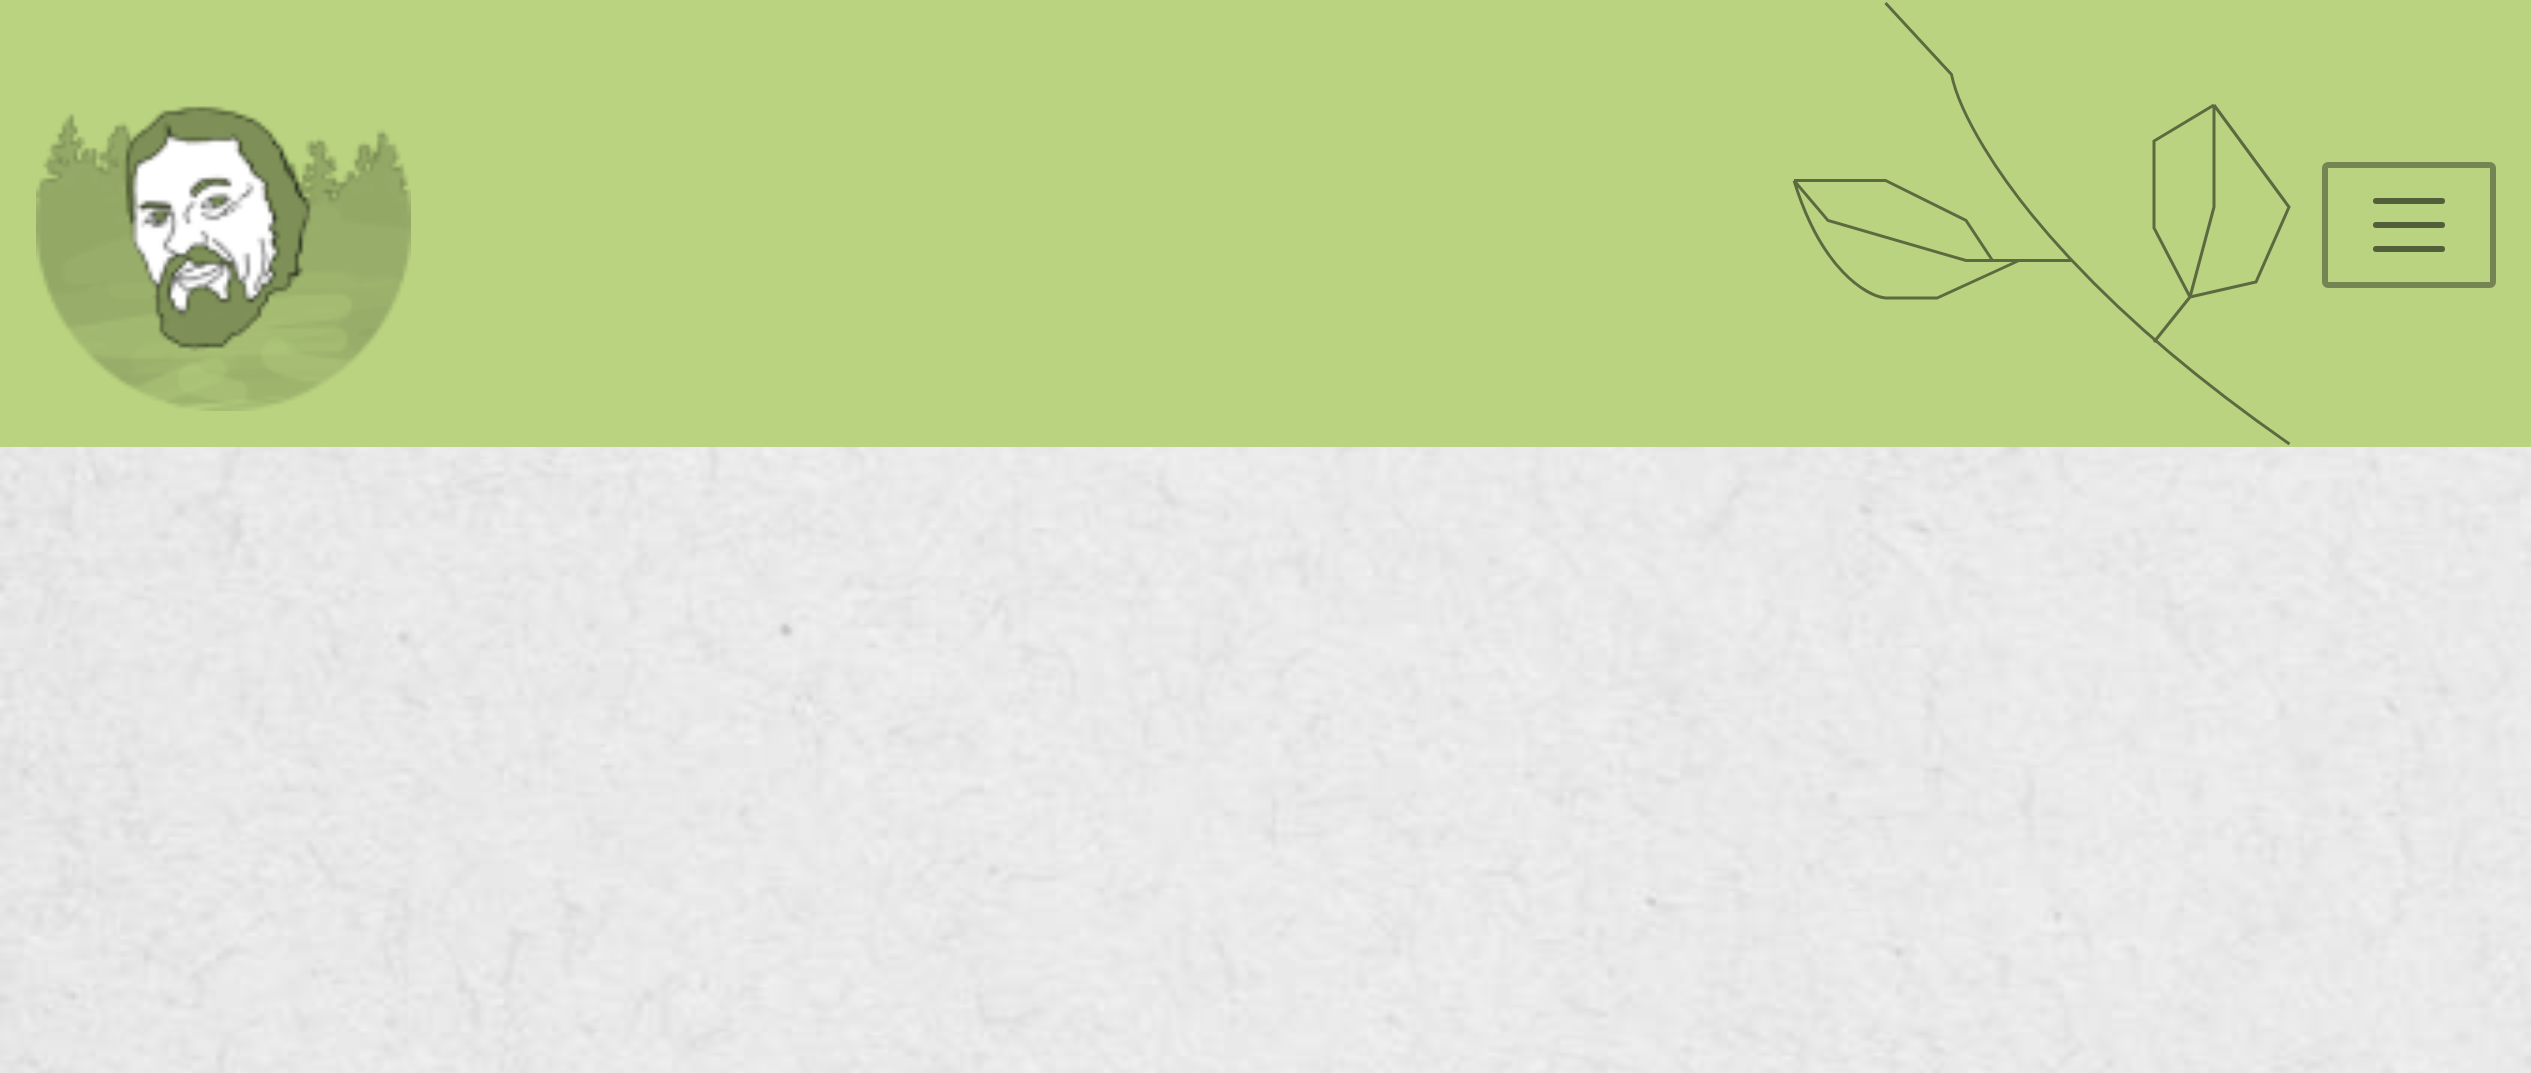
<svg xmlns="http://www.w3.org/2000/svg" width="2531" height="1073">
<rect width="100%" height="100%" fill="#fff"/>
<image x="0" y="447" width="2531" height="626" href="media/1.png"/>
<rect width="2531" height="447" fill="#b9d380"/>
<image x="36" y="106" width="375" height="305" href="media/2.png"/>
<path d="M2154 342l36-45m0 0l24-90v-102m-24 192l66-15l33-75l-75-102m-24 192l-36-69v-87l60-36" fill="none" stroke="#5d6a40" stroke-width="3"/>
<path d="M2289.5 444c-95-66-166-128.5-217.5-183.5m-186.5-257.5l66 71.5c6.5 32 39.5 100 120.5 186m0 0h-53m-225-80l34 40l138 40h26.5m-198.5-80c27.5 89.5 72.5 115.5 91.5 117.5h51.5l82-37.5m-225-80h91.5l80.5 40l26.5 40m26.5 0h-26.5" fill="none" stroke="#5d6a40" stroke-width="2.9"/>
<rect x="2325" y="165" width="168" height="120" rx="3" fill="none" stroke="#748452" stroke-width="6"/>
<path d="M2376 201h66m-66 24h66m-66 24h66" fill="none" stroke="#535f3a" stroke-width="6" stroke-linecap="round"/>
</svg>
